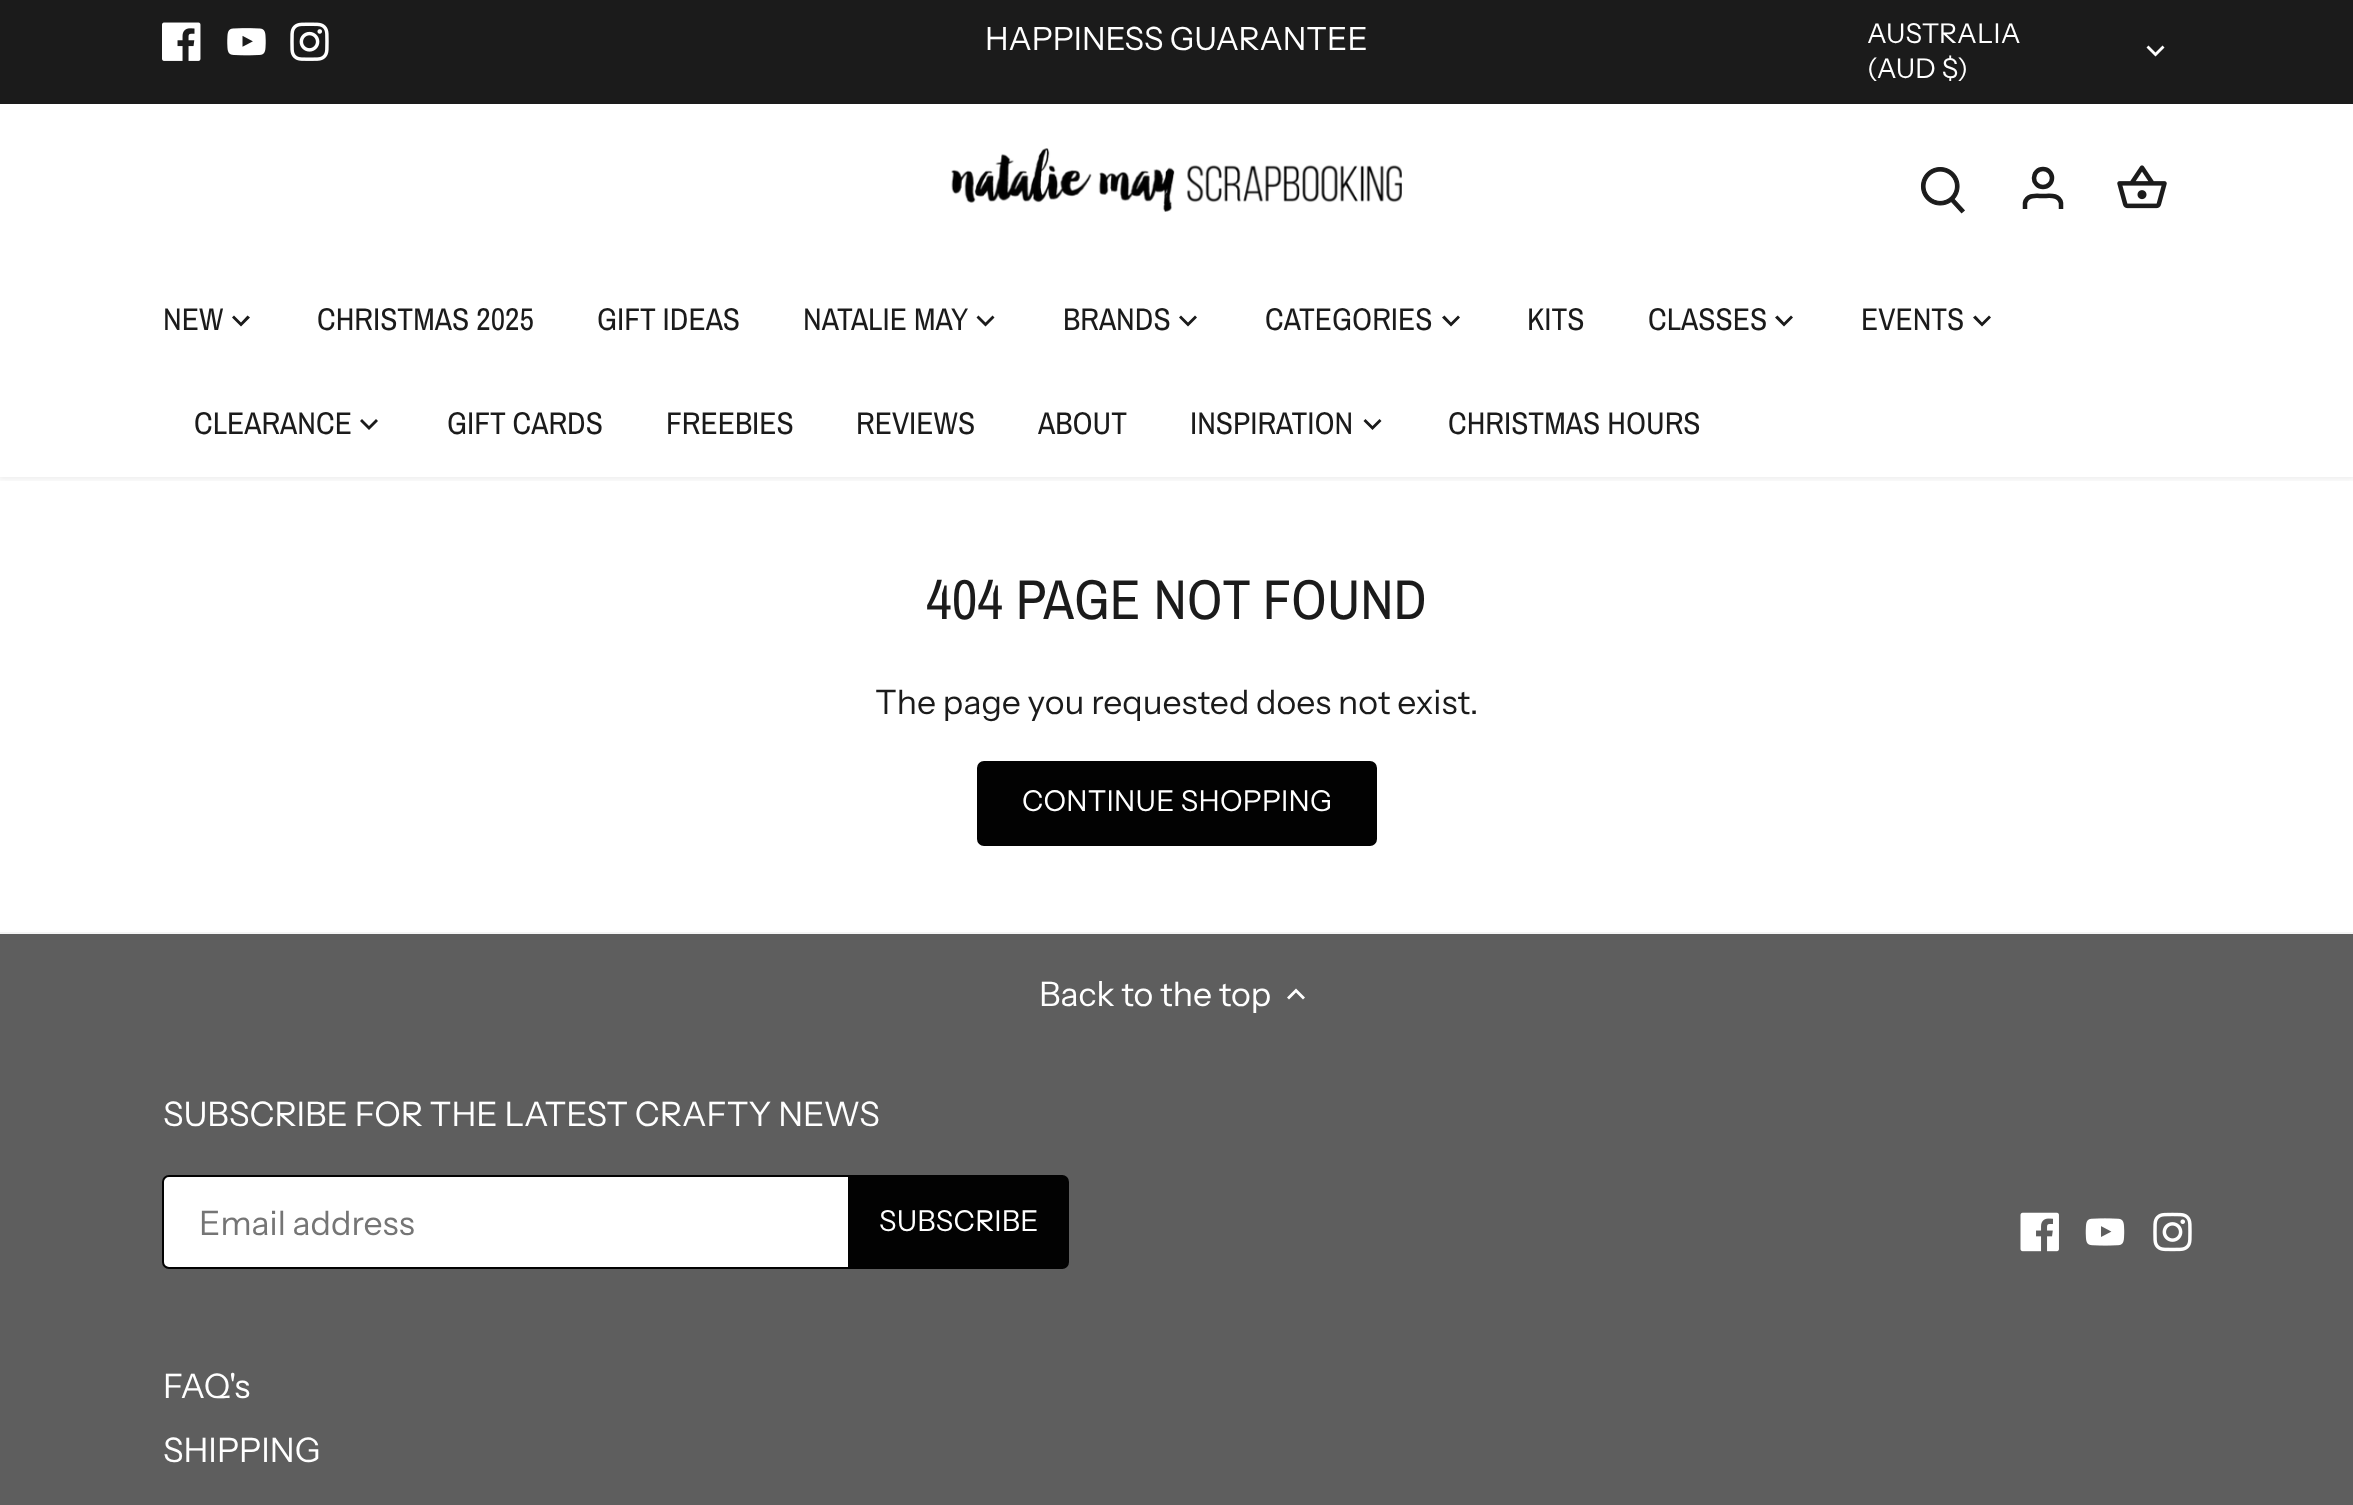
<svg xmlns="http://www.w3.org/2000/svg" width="2353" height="1505">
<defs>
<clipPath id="clip1"><rect x="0" y="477" width="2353" height="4"/></clipPath>
</defs>
<rect width="100%" height="100%" fill="#5e5e5e"/>
<rect y="104" width="2353" height="828" fill="#fff"/>
<g clip-path="url(#clip1)">
<rect x="-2" y="101" width="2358" height="378" fill="#00000014" filter="blur(3.5px)"/>
</g>
<rect width="2353" height="104" fill="#1b1b1b"/>
<image x="162" y="22" width="39" height="39" href="media/1.png"/>
<image x="227" y="28" width="39" height="28" href="media/2.png"/>
<image x="290" y="22" width="39" height="39" href="media/3.png"/>
<text x="985" y="50" style="font-family:Instrument Sans;font-size:32px;fill:#fff">HAPPINESS GUARANTEE</text>
<text x="1867" y="43" style="font-family:Instrument Sans;font-size:27.25px;letter-spacing:0.25px;fill:#fff">AUSTRALIA</text>
<path d="M2148.5 45.5l7 7l7-7l2 2l-9 9l-9-9z" fill="#fff"/>
<text x="1867" y="78" style="font-family:Instrument Sans;font-size:27.25px;letter-spacing:0.25px;fill:#fff">(AUD $)</text>
<image x="951" y="148" width="451" height="64" href="media/4.png"/>
<image x="1920" y="167" width="45" height="47" href="media/5.png"/>
<circle cx="2043" cy="178" r="9" fill="none" stroke="#1b1b1b" stroke-width="4.5"/>
<path d="M2061 209v-6c-2-9-11.5-7-18-7c-6.5 0-16-2-18 7v6" fill="none" stroke="#1b1b1b" stroke-width="4.5"/>
<image x="2117" y="165" width="50" height="44" href="media/6.png"/>
<text x="163" y="330" style="font-family:Archivo Narrow;font-size:31.5px;fill:#1b1b1b">NEW</text>
<path d="M234 315.5l7 7l6.5-7l2.5 2l-9 9l-9-9z" fill="#1b1b1b"/>
<text x="317" y="330" style="font-family:Archivo Narrow;font-size:31.5px;fill:#1b1b1b">CHRISTMAS 2025</text>
<text x="597" y="330" style="font-family:Archivo Narrow;font-size:31.5px;fill:#1b1b1b">GIFT IDEAS</text>
<text x="803" y="330" style="font-family:Archivo Narrow;font-size:31.5px;fill:#1b1b1b">NATALIE MAY</text>
<path d="M978.5 315.5l7 7l7-7l2 2l-9 9l-9-9z" fill="#1b1b1b"/>
<text x="1063" y="330" style="font-family:Archivo Narrow;font-size:31.5px;fill:#1b1b1b">BRANDS</text>
<path d="M1181 315.5l7 7l7-7l2 2l-9 9l-9-9z" fill="#1b1b1b"/>
<text x="1265" y="330" style="font-family:Archivo Narrow;font-size:31.5px;fill:#1b1b1b">CATEGORIES</text>
<path d="M1444.5 315.5l6.5 7l7-7l2 2l-9 9l-9-9z" fill="#1b1b1b"/>
<text x="1527" y="330" style="font-family:Archivo Narrow;font-size:31.5px;fill:#1b1b1b">KITS</text>
<text x="1648" y="330" style="font-family:Archivo Narrow;font-size:31.5px;fill:#1b1b1b">CLASSES</text>
<path d="M1777.5 315.5l6.5 7l7-7l2 2l-9 9l-9-9z" fill="#1b1b1b"/>
<text x="1861" y="330" style="font-family:Archivo Narrow;font-size:31.5px;fill:#1b1b1b">EVENTS</text>
<path d="M1975.5 315.5l6.5 7l7-7l2 2l-9 9l-9-9z" fill="#1b1b1b"/>
<text x="194" y="434" style="font-family:Archivo Narrow;font-size:31.5px;fill:#1b1b1b">CLEARANCE</text>
<path d="M362 419l7 7l7-7l2 2l-9 9l-9-9z" fill="#1b1b1b"/>
<text x="447" y="434" style="font-family:Archivo Narrow;font-size:31.5px;fill:#1b1b1b">GIFT CARDS</text>
<text x="666" y="434" style="font-family:Archivo Narrow;font-size:31.5px;fill:#1b1b1b">FREEBIES</text>
<text x="856" y="434" style="font-family:Archivo Narrow;font-size:31.5px;fill:#1b1b1b">REVIEWS</text>
<text x="1038" y="434" style="font-family:Archivo Narrow;font-size:31.5px;fill:#1b1b1b">ABOUT</text>
<text x="1190" y="434" style="font-family:Archivo Narrow;font-size:31.5px;fill:#1b1b1b">INSPIRATION</text>
<path d="M1365.5 419l7 7l7-7l2 2l-9 9l-9-9z" fill="#1b1b1b"/>
<text x="1448" y="434" style="font-family:Archivo Narrow;font-size:31.5px;fill:#1b1b1b">CHRISTMAS HOURS</text>
<text x="926" y="619" style="font-family:Archivo Narrow;font-size:56.25px;fill:#1b1b1b">404 PAGE NOT FOUND</text>
<text x="875" y="714" style="font-family:Instrument Sans;font-size:33.75px;fill:#1b1b1b">The page you requested does not exist.</text>
<rect x="979.5" y="763.5" width="395" height="80" rx="4.5" fill="#020202" stroke="#020202" stroke-width="5"/>
<text x="1022" y="811" style="font-family:Instrument Sans;font-size:28.75px;letter-spacing:0.25px;fill:#fff">CONTINUE SHOPPING</text>
<rect y="932" width="2353" height="2" fill="#f4f4f4"/>
<text x="1039" y="1006" style="font-family:Instrument Sans;font-size:33.75px;fill:#fff">Back to the top</text>
<path d="M1289 999.5l7-7l7 7l2-2l-9-9l-9 9z" fill="#fff"/>
<text x="163" y="1126" style="font-family:Instrument Sans;font-size:33.75px;fill:#fff">SUBSCRIBE FOR THE LATEST CRAFTY NEWS</text>
<rect x="163" y="1176" width="903" height="92" rx="6" fill="#fff" stroke="#020202" stroke-width="2"/>
<text x="199" y="1235" style="font-family:Instrument Sans;font-size:33.75px;fill:#757575">Email address</text>
<path d="M849 1176h213c3.5 0 6 2.5 6 6v80c0 3.5-2.5 6-6 6h-213z" fill="#020202" stroke="#020202" stroke-width="2"/>
<text x="879" y="1231" style="font-family:Instrument Sans;font-size:28.75px;letter-spacing:0.25px;fill:#fff">SUBSCRIBE</text>
<image x="2020" y="1212" width="39" height="40" href="media/7.png"/>
<image x="2085" y="1218" width="40" height="28" href="media/8.png"/>
<image x="2153" y="1212" width="39" height="40" href="media/9.png"/>
<text x="163" y="1398" style="font-family:Instrument Sans;font-size:33.75px;fill:#fff">FAQ's</text>
<text x="163" y="1462" style="font-family:Instrument Sans;font-size:33.75px;fill:#fff">SHIPPING</text>
</svg>
